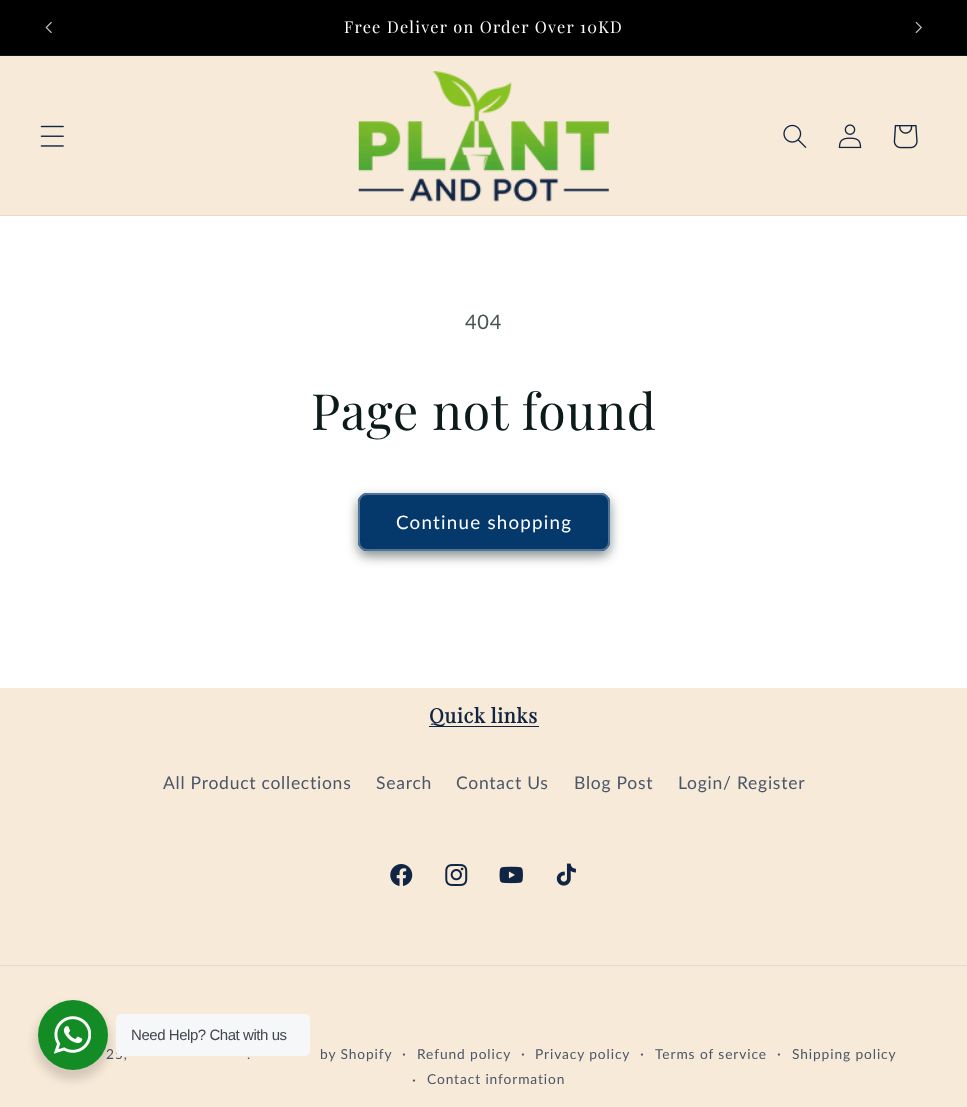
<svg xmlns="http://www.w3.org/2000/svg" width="967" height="1107">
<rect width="100%" height="100%" fill="#fff"/>
<rect width="967" height="55" fill="#000"/>
<rect y="55" width="967" height="1" fill="#141414"/>
<image x="45" y="21" width="7" height="12" href="media/1.png"/>
<text x="344" y="33" style="font-family:Playfair Display;font-size:16.25px;letter-spacing:1.25px;fill:#fff">Free Deliver on Order Over 10KD</text>
<image x="915" y="22" width="7" height="11" href="media/2.png"/>
<rect y="56" width="967" height="159" fill="#f8ead8"/>
<rect y="215" width="967" height="1" fill="#e5dacc"/>
<image x="40" y="125" width="24" height="22" href="media/3.png"/>
<image x="358" y="71" width="251" height="131" href="media/4.png"/>
<image x="783" y="124" width="24" height="24" href="media/5.png"/>
<image x="838" y="124" width="24" height="25" href="media/6.png"/>
<image x="893" y="125" width="25" height="24" href="media/7.png"/>
<text x="465" y="329" style="font-family:Lato;font-size:20px;letter-spacing:0.75px;fill:#495353">404</text>
<text x="311" y="430" style="font-family:Playfair Display;font-size:50px;letter-spacing:0.75px;fill:#0c1a1a">Page not found</text>
<rect x="358" y="498" width="252" height="58" rx="9" fill="#0c1a1a80" filter="blur(6px)"/>
<rect x="358" y="493" width="252" height="58" rx="9" fill="#05386b"/>
<rect x="358.5" y="493.5" width="251" height="57" rx="8.5" fill="none" stroke="#05386b"/>
<rect x="359" y="494" width="250" height="56" rx="8" fill="none" stroke="#ffffff4d" stroke-width="2"/>
<text x="396" y="529" style="font-family:Lato;font-size:18.75px;letter-spacing:1.25px;fill:#fff">Continue shopping</text>
<rect y="688" width="967" height="419" fill="#f8ead8"/>
<rect x="429" y="726" width="110" height="1" fill="#102444"/>
<text x="429" y="723" style="font-family:Playfair Display;font-size:20px;font-weight:bold;letter-spacing:0.75px;fill:#102444">Quick links</text>
<text x="163" y="789" style="font-family:Lato;font-size:17.5px;letter-spacing:0.75px;fill:#4a5669">All Product collections</text>
<text x="376" y="789" style="font-family:Lato;font-size:17.5px;letter-spacing:0.75px;fill:#4a5669">Search</text>
<text x="456" y="789" style="font-family:Lato;font-size:17.5px;letter-spacing:0.75px;fill:#4a5669">Contact Us</text>
<text x="574" y="789" style="font-family:Lato;font-size:17.5px;letter-spacing:0.75px;fill:#4a5669">Blog Post</text>
<text x="678" y="789" style="font-family:Lato;font-size:17.5px;letter-spacing:0.75px;fill:#4a5669">Login/ Register</text>
<image x="390" y="864" width="23" height="22" href="media/8.png"/>
<image x="445" y="864" width="23" height="22" href="media/9.png"/>
<image x="499" y="866" width="24" height="18" href="media/10.png"/>
<image x="556" y="863" width="20" height="23" href="media/11.png"/>
<rect y="965" width="967" height="1" fill="#e5dacc"/>
<text x="106" y="1059" style="font-family:Lato;font-size:13.75px;letter-spacing:0.9px;fill:#4a5669">25,</text>
<text x="247" y="1059" style="font-family:Lato;font-size:13.75px;letter-spacing:0.9px;fill:#4a5669">.</text>
<text x="320" y="1059" style="font-family:Lato;font-size:13.75px;letter-spacing:0.9px;fill:#4a5669">by Shopify</text>
<text x="402" y="1059" style="font-family:Lato;font-size:15px;letter-spacing:0.9px;fill:#4a5669">·</text>
<text x="417" y="1059" style="font-family:Lato;font-size:13.75px;letter-spacing:0.9px;fill:#4a5669">Refund policy</text>
<text x="521" y="1059" style="font-family:Lato;font-size:15px;letter-spacing:0.9px;fill:#4a5669">·</text>
<text x="535" y="1059" style="font-family:Lato;font-size:13.75px;letter-spacing:0.9px;fill:#4a5669">Privacy policy</text>
<text x="640" y="1059" style="font-family:Lato;font-size:15px;letter-spacing:0.9px;fill:#4a5669">·</text>
<text x="655" y="1059" style="font-family:Lato;font-size:13.75px;letter-spacing:0.9px;fill:#4a5669">Terms of service</text>
<text x="777" y="1059" style="font-family:Lato;font-size:15px;letter-spacing:0.9px;fill:#4a5669">·</text>
<text x="792" y="1059" style="font-family:Lato;font-size:13.75px;letter-spacing:0.9px;fill:#4a5669">Shipping policy</text>
<text x="412" y="1085" style="font-family:Lato;font-size:15px;letter-spacing:0.9px;fill:#4a5669">·</text>
<text x="427" y="1084" style="font-family:Lato;font-size:13.75px;letter-spacing:0.9px;fill:#4a5669">Contact information</text>
<rect x="35" y="1005" width="75" height="75" rx="37.5" fill="#00000024" filter="blur(5px)"/>
<circle cx="73" cy="1035" r="35" fill="#148c26"/>
<image x="54" y="1016" width="37" height="38" href="media/12.png"/>
<rect x="116" y="1014" width="194" height="42" rx="5" fill="#f5f7f9"/>
<text x="131" y="1040" style="font-family:Liberation Sans;font-size:15px;letter-spacing:-0.45px;fill:#43474e">Need Help? Chat with us</text>
</svg>
